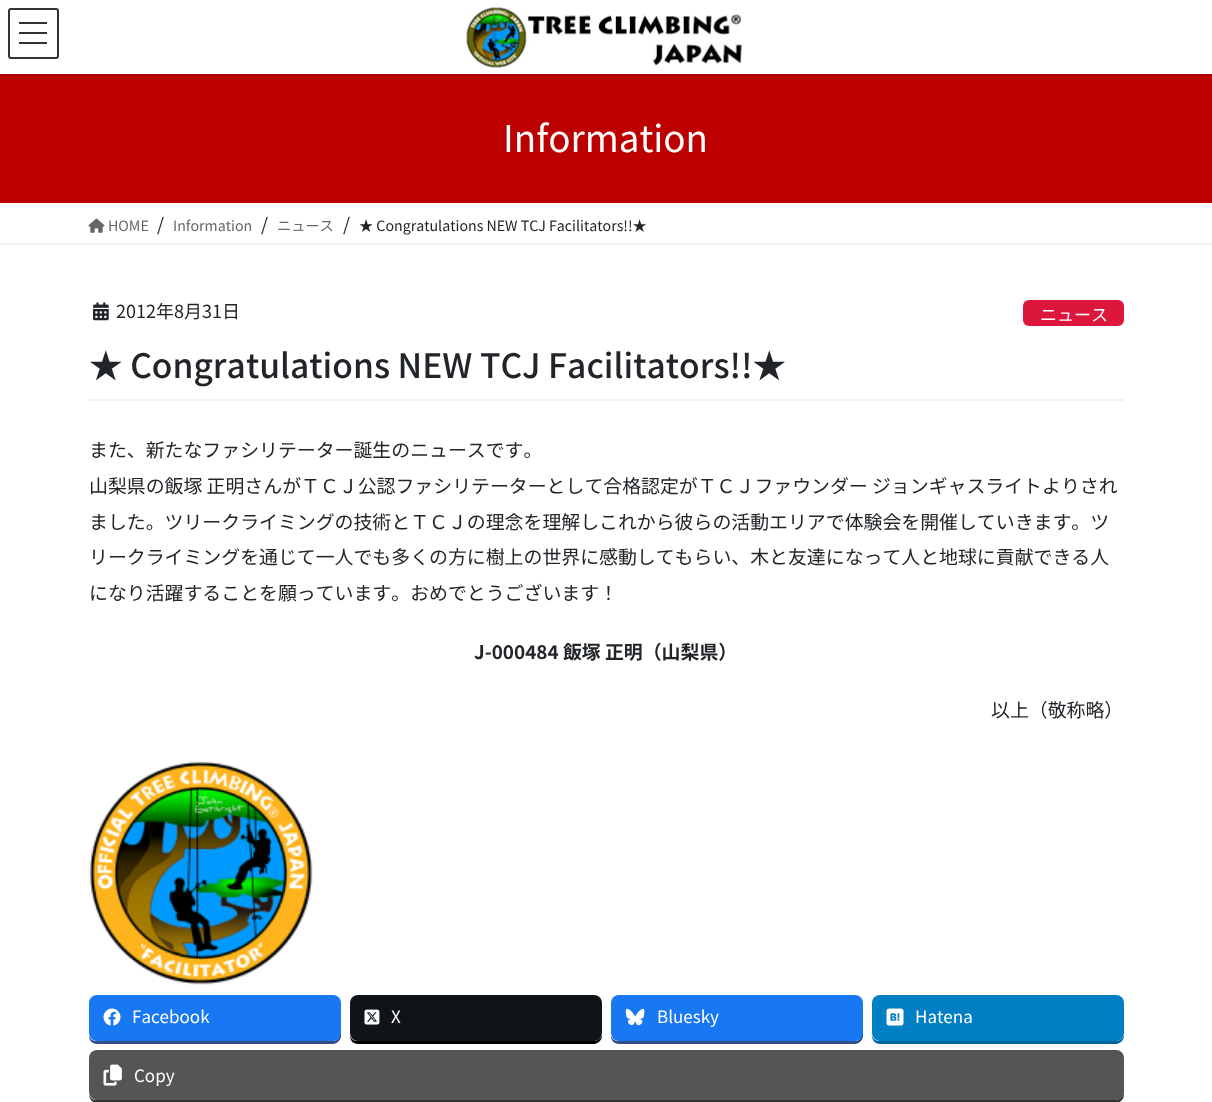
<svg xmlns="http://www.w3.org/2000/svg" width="1212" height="1102">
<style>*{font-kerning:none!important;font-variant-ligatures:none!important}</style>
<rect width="100%" height="100%" fill="#fff"/>
<rect y="74" width="1212" height="129" fill="#bc0000"/>
<rect y="2" width="1212" height="73" fill="#0000001a" filter="blur(2px)"/>
<rect width="1212" height="74" fill="#fff"/>
<image x="466" y="7" width="276" height="61" href="media/1.png"/>
<rect x="19" y="22" width="28" height="2" fill="#333"/>
<rect x="19" y="32" width="28" height="2" fill="#333"/>
<rect x="19" y="42" width="28" height="2" fill="#333"/>
<rect x="9" y="9" width="49" height="49" rx="2" fill="none" stroke="#333" stroke-width="2"/>
<text x="503" y="152" style="font-family:Noto Sans JP;font-size:36.75px;fill:#fff">Information</text>
<rect y="243" width="1212" height="2" fill="#f2f2f2"/>
<image x="88" y="218" width="17" height="15" href="media/2.png"/>
<text x="108" y="231" style="font-family:Noto Sans JP;font-size:14.2px;fill:#666">HOME</text>
<text x="157" y="231" style="font-family:Noto Sans JP;font-size:18px;fill:#212529">/</text>
<text x="173" y="231" style="font-family:Noto Sans JP;font-size:14.2px;fill:#666">Information</text>
<text x="261" y="231" style="font-family:Noto Sans JP;font-size:18px;fill:#212529">/</text>
<text x="277" y="231" style="font-family:Noto Sans JP;font-size:14.2px;fill:#666">ニュース</text>
<text x="343" y="231" style="font-family:Noto Sans JP;font-size:18px;fill:#212529">/</text>
<text x="359" y="231" style="font-family:Noto Sans JP;font-size:14.2px;fill:#212529">★ Congratulations NEW TCJ Facilitators!!★</text>
<rect x="89" y="399" width="1035" height="2" fill="#f2f2f2"/>
<image x="93" y="302" width="16" height="19" href="media/3.png"/>
<text x="116" y="318" style="font-family:Noto Sans JP;font-size:18px;fill:#212529">2012年8月31日</text>
<rect x="1023" y="300" width="101" height="26" rx="6" fill="#dd163e"/>
<text x="1040" y="321" style="font-family:Noto Sans JP;font-size:17px;fill:#fff">ニュース</text>
<text x="89" y="378" style="font-family:Noto Sans JP;font-size:33.6px;font-weight:500;fill:#212529">★ Congratulations NEW TCJ Facilitators!!★</text>
<text x="89" y="457" style="font-family:Noto Sans JP;font-size:18.9px;fill:#212529">また、新たなファシリテーター誕生のニュースです。</text>
<text x="89" y="493" style="font-family:Noto Sans JP;font-size:18.9px;fill:#212529">山梨県の飯塚 正明さんがＴＣＪ公認ファシリテーターとして合格認定がＴＣＪファウンダー ジョンギャスライトよりされ</text>
<text x="89" y="529" style="font-family:Noto Sans JP;font-size:18.9px;fill:#212529">ました。ツリークライミングの技術とＴＣＪの理念を理解しこれから彼らの活動エリアで体験会を開催していきます。ツ</text>
<text x="89" y="564" style="font-family:Noto Sans JP;font-size:18.9px;fill:#212529">リークライミングを通じて一人でも多くの方に樹上の世界に感動してもらい、木と友達になって人と地球に貢献できる人</text>
<text x="89" y="600" style="font-family:Noto Sans JP;font-size:18.9px;fill:#212529">になり活躍することを願っています。おめでとうございます！</text>
<text x="474" y="659" style="font-family:Noto Sans JP;font-size:18.9px;font-weight:bold;fill:#212529">J-000484 飯塚 正明（山梨県）</text>
<text x="991" y="717" style="font-family:Noto Sans JP;font-size:18.9px;fill:#212529">以上（敬称略）</text>
<image x="89" y="761" width="224" height="224" href="media/4.png"/>
<path d="M89 1036c0 5 4 8 8 8h236c4 0 8-4 8-8v-30l-1-3v31c0 4-3 7-7 7h-237c-3 0-6-2-7-5z" fill="#344e84"/>
<rect x="89" y="995" width="252" height="46" rx="8" fill="#1877f2"/>
<image x="103" y="1008" width="18" height="18" href="media/5.png"/>
<text x="132" y="1023" style="font-family:Noto Sans JP;font-size:17px;fill:#fff">Facebook</text>
<path d="M350 1036c0 5 4 8 8 8h236c4 0 8-4 8-8v-30v-3v31c0 4-4 7-8 7h-237c-3 0-6-2-7-5z" fill="#000"/>
<rect x="350" y="995" width="252" height="46" rx="8" fill="#0f1419"/>
<image x="364" y="1009" width="16" height="16" href="media/6.png"/>
<text x="391" y="1023" style="font-family:Noto Sans JP;font-size:17px;fill:#fff">X</text>
<path d="M611 1036c0 5 4 8 8 8h236c4 0 8-4 8-8v-30l-1-3v31c0 4-3 7-7 7h-237c-3 0-6-2-7-5z" fill="#344e84"/>
<rect x="611" y="995" width="252" height="46" rx="8" fill="#1877f2"/>
<image x="625" y="1008" width="20" height="18" href="media/7.png"/>
<text x="657" y="1023" style="font-family:Noto Sans JP;font-size:17px;fill:#fff">Bluesky</text>
<path d="M872 1036c0 5 4 8 8 8h236c4 0 8-4 8-8v-30v-3v31c0 4-4 7-8 7h-237c-3 0-6-2-7-5z" fill="#00679f"/>
<rect x="872" y="995" width="252" height="46" rx="8" fill="#007fc5"/>
<image x="886" y="1008" width="18" height="18" href="media/8.png"/>
<text x="915" y="1023" style="font-family:Noto Sans JP;font-size:17px;fill:#fff">Hatena</text>
<path d="M89 1095c0 4 4 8 8 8h1019c4 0 8-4 8-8v-34v-3v34c0 4-4 8-8 8h-1020c-3 0-6-2-7-5z" fill="#333"/>
<rect x="89" y="1050" width="1035" height="50" rx="8" fill="#555"/>
<image x="103" y="1064" width="19" height="22" href="media/9.png"/>
<text x="134" y="1082" style="font-family:Noto Sans JP;font-size:17px;fill:#fff">Copy</text>
</svg>
